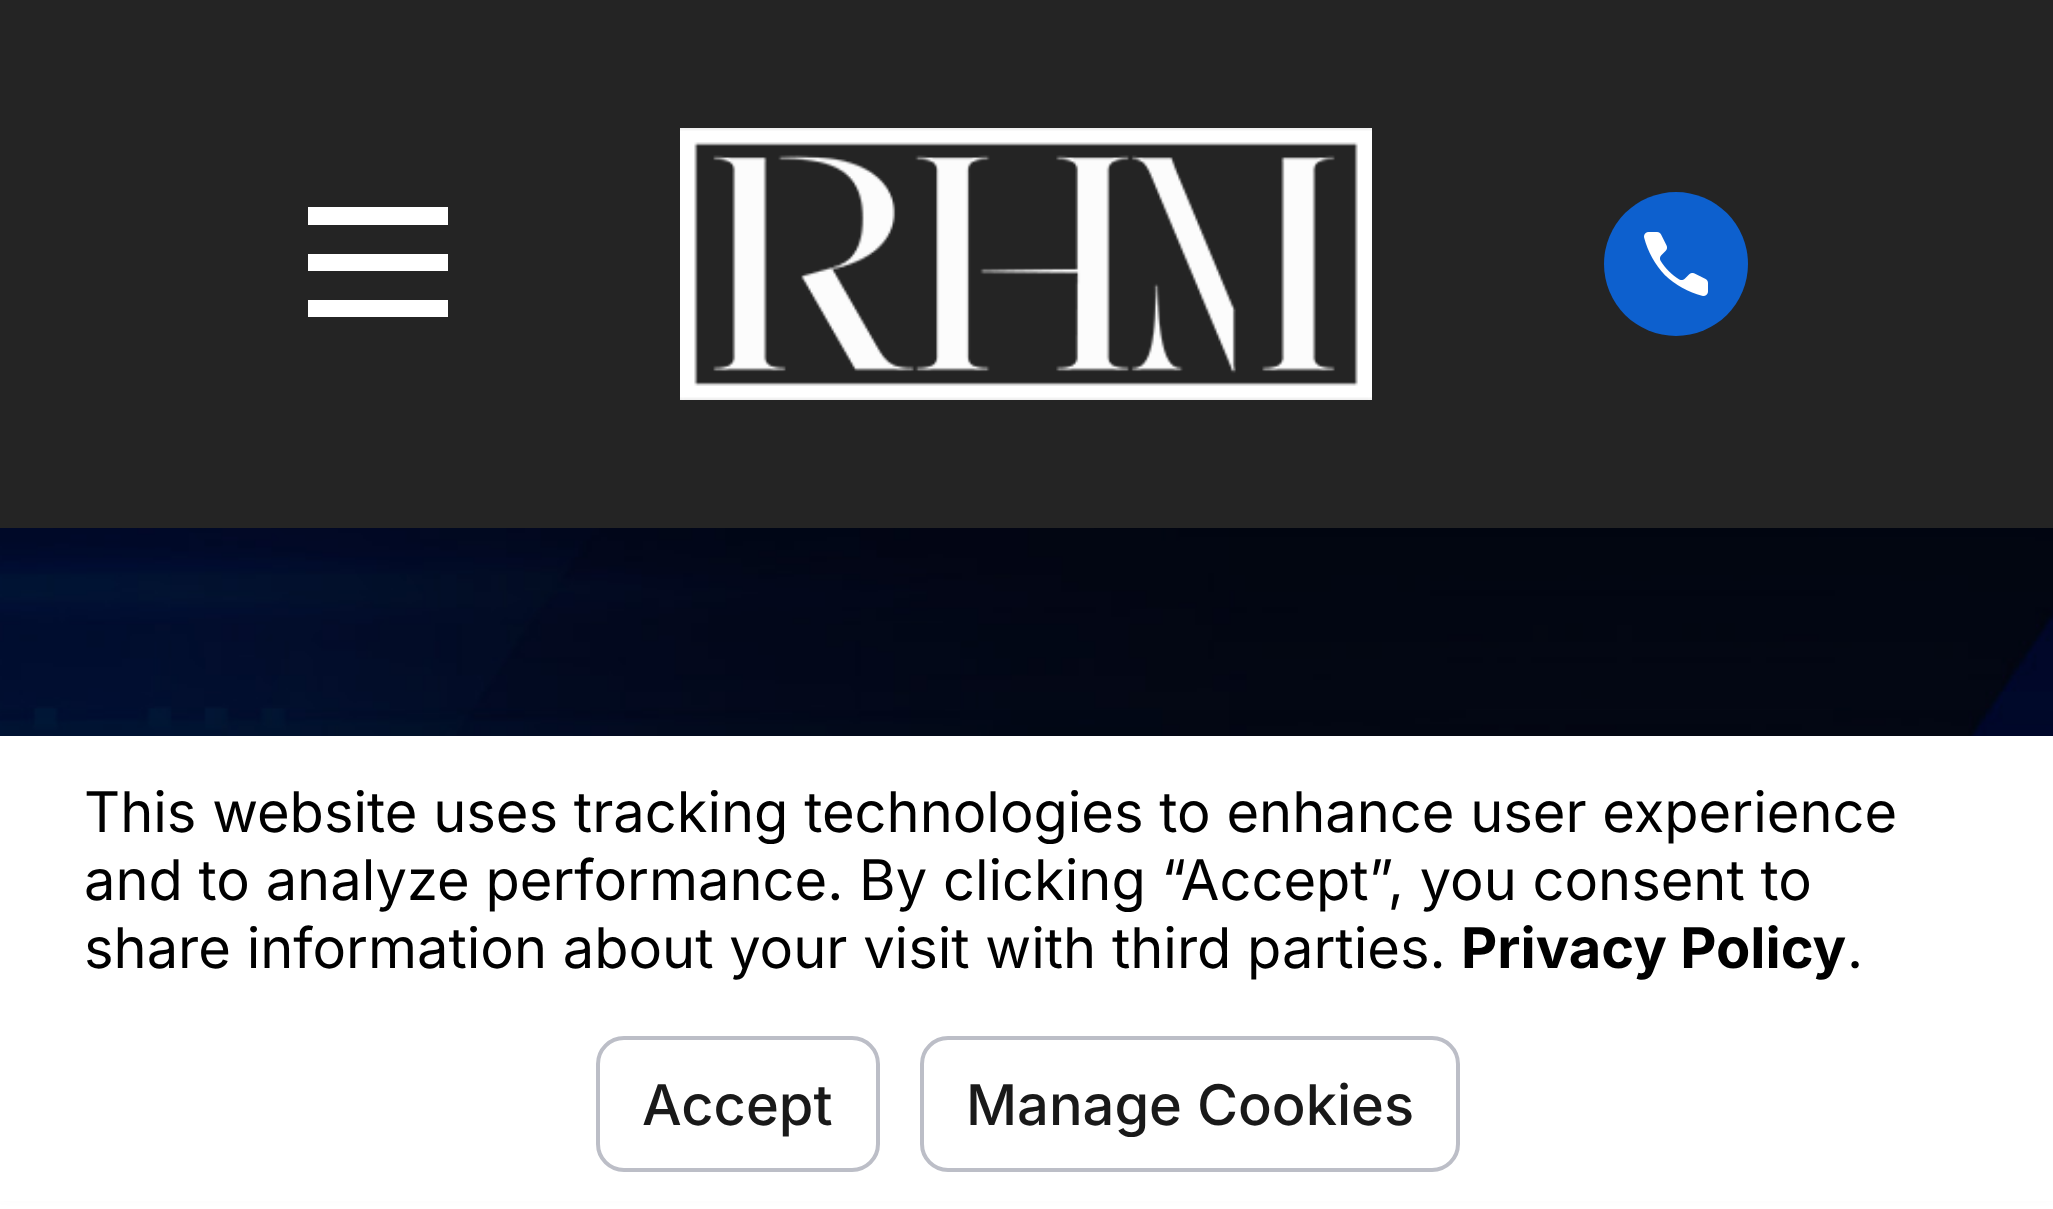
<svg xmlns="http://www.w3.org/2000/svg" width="2053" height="1209">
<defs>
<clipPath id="clip1"><rect x="308" y="192" width="140" height="144"/></clipPath>
</defs>
<rect width="100%" height="100%" fill="#fff"/>
<rect width="2053" height="528" fill="#242424"/>
<g clip-path="url(#clip1)">
<path d="M308 207v18h141v-18zm0 47v17h141v-17zm0 46v17h141v-17z" fill="#fff"/>
</g>
<image x="680" y="128" width="692" height="272" href="media/1.png"/>
<circle cx="1676" cy="264" r="72" fill="#0d60ce"/>
<image x="1644" y="232" width="64" height="64" href="media/2.png"/>
<image x="0" y="528" width="2053" height="208" href="media/3.png"/>
<rect y="720" width="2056" height="476" fill="#0000000d" filter="blur(6px)"/>
<rect y="736" width="2053" height="465" fill="#fff"/>
<text x="84" y="832" style="font-family:Inter;font-size:56px;fill:#000">This website uses tracking technologies to enhance user experience</text>
<text x="84" y="900" style="font-family:Inter;font-size:56px;fill:#000">and to analyze performance. By clicking “Accept”, you consent to</text>
<text x="84" y="968" style="font-family:Inter;font-size:56px;fill:#000">share information about your visit with third parties.</text>
<text x="1461" y="968" style="font-family:Inter;font-size:56px;font-weight:bold;fill:#000">Privacy Policy</text>
<text x="1847" y="968" style="font-family:Inter;font-size:56px;fill:#000">.</text>
<rect x="598" y="1038" width="280" height="132" rx="26" fill="none" stroke="#bcbec7" stroke-width="4"/>
<text x="642" y="1125" style="font-family:Inter;font-size:56px;font-weight:500;fill:#191919">Accept</text>
<rect x="922" y="1038" width="536" height="132" rx="26" fill="none" stroke="#bcbec7" stroke-width="4"/>
<text x="966" y="1125" style="font-family:Inter;font-size:56px;font-weight:500;fill:#191919">Manage Cookies</text>
</svg>
